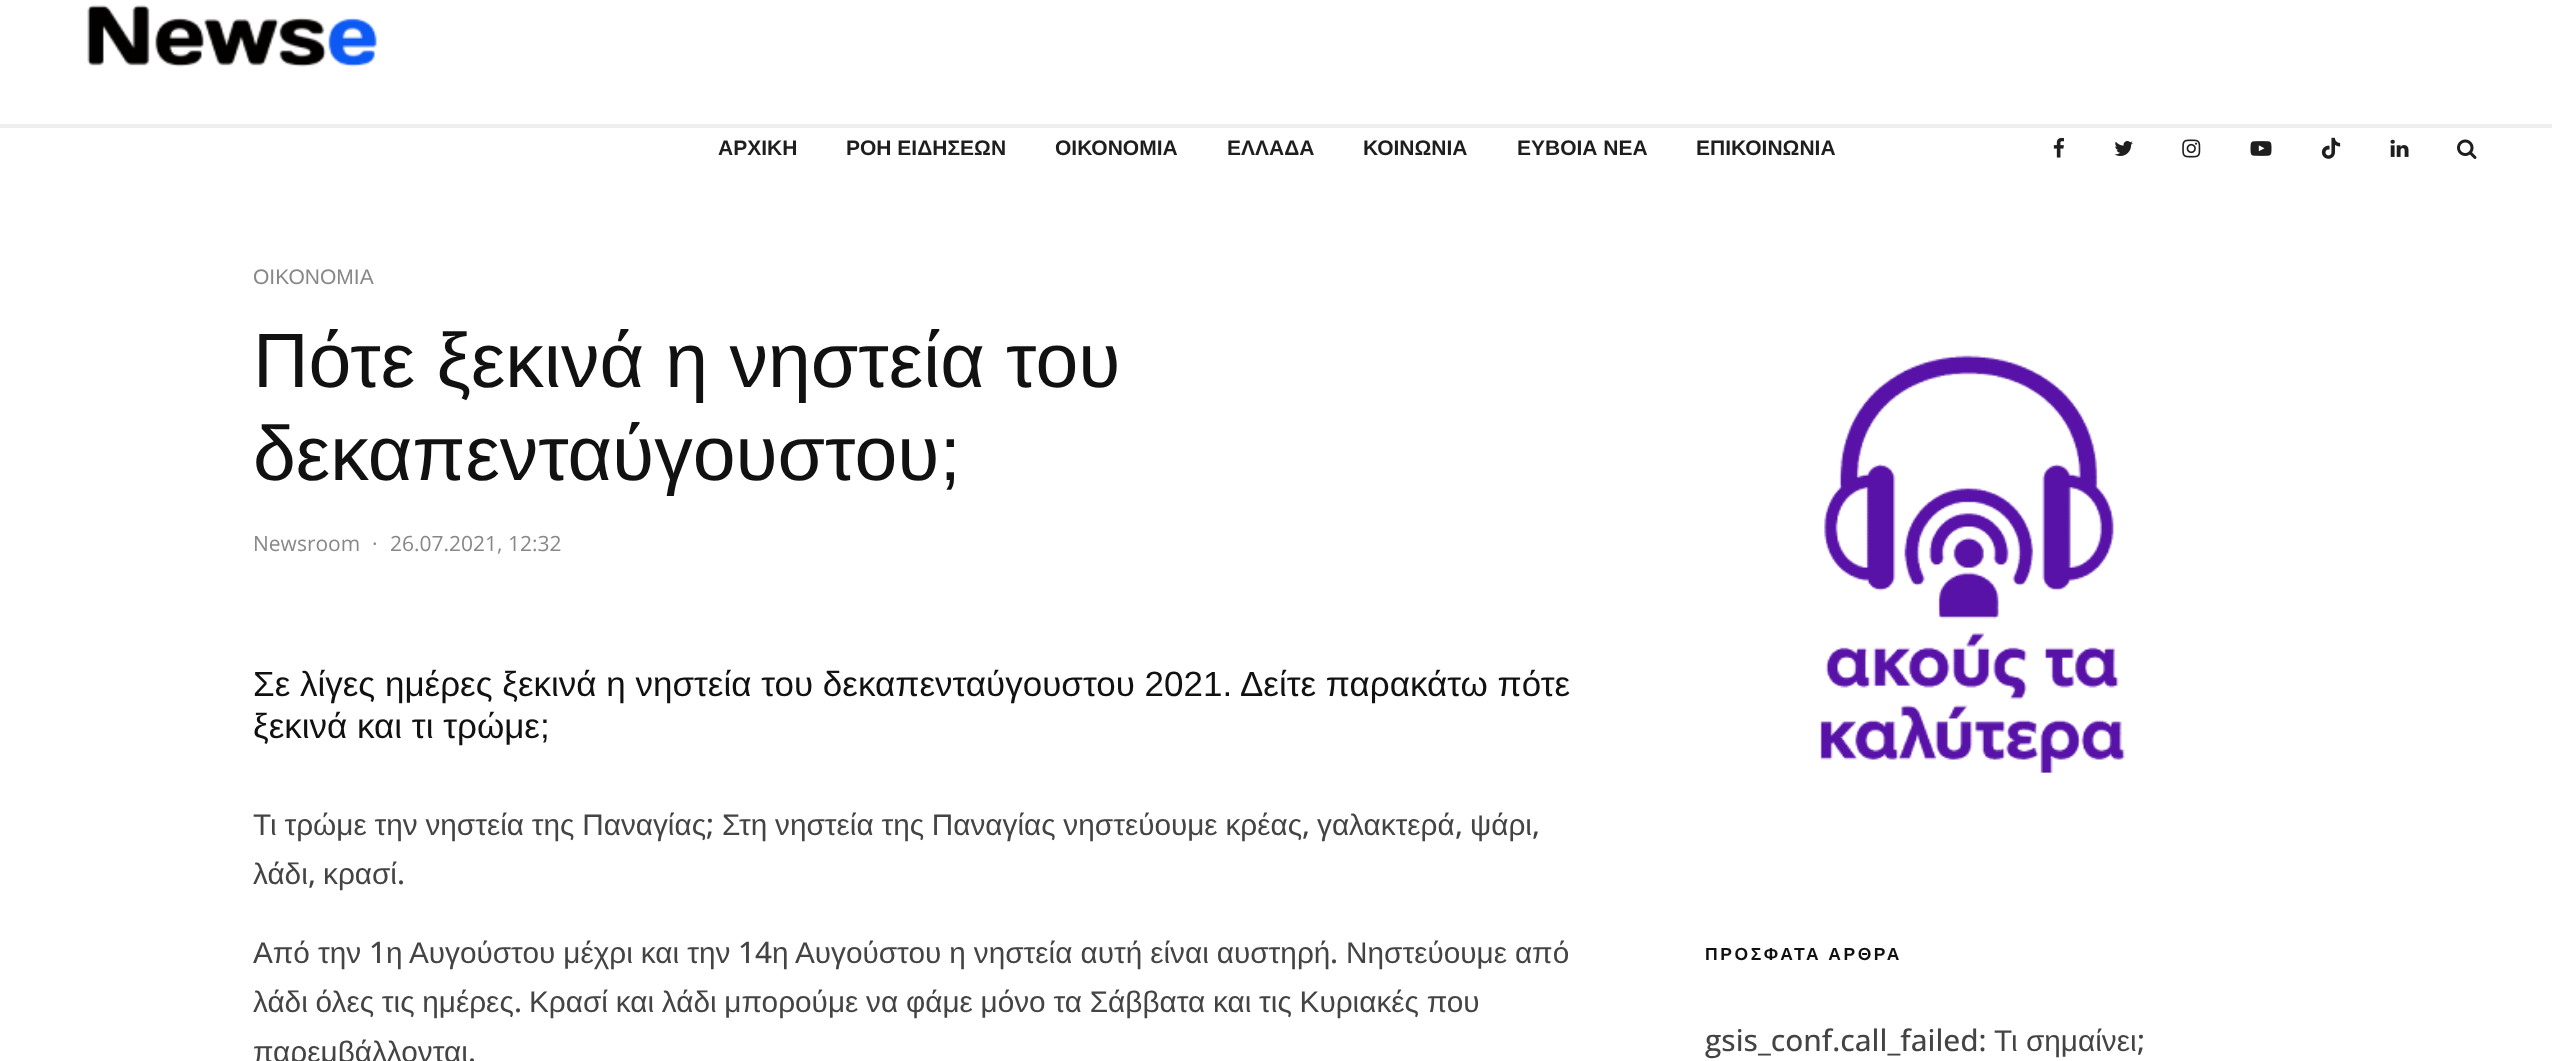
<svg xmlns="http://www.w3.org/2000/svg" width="2552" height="1061">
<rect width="100%" height="100%" fill="#fff"/>
<image x="87" y="5" width="290" height="62" href="media/1.png"/>
<rect y="124" width="2552" height="4" fill="#eee"/>
<text x="718" y="155" style="font-family:Liberation Sans;font-size:21px;font-weight:bold;fill:#1e1e1e">ΑΡΧΙΚΗ</text>
<text x="846" y="155" style="font-family:Liberation Sans;font-size:21px;font-weight:bold;fill:#1e1e1e">ΡΟΗ ΕΙΔΗΣΕΩΝ</text>
<text x="1055" y="155" style="font-family:Liberation Sans;font-size:21px;font-weight:bold;fill:#1e1e1e">ΟΙΚΟΝΟΜΙΑ</text>
<text x="1227" y="155" style="font-family:Liberation Sans;font-size:21px;font-weight:bold;fill:#1e1e1e">ΕΛΛΑΔΑ</text>
<text x="1363" y="155" style="font-family:Liberation Sans;font-size:21px;font-weight:bold;fill:#1e1e1e">ΚΟΙΝΩΝΙΑ</text>
<text x="1517" y="155" style="font-family:Liberation Sans;font-size:21px;font-weight:bold;fill:#1e1e1e">ΕΥΒΟΙΑ ΝΕΑ</text>
<text x="1696" y="155" style="font-family:Liberation Sans;font-size:21px;font-weight:bold;fill:#1e1e1e">ΕΠΙΚΟΙΝΩΝΙΑ</text>
<image x="2053" y="138" width="11" height="20" href="media/2.png"/>
<image x="2114" y="141" width="19" height="15" href="media/3.png"/>
<image x="2182" y="139" width="19" height="19" href="media/4.png"/>
<image x="2250" y="141" width="22" height="15" href="media/5.png"/>
<image x="2321" y="137" width="20" height="22" href="media/6.png"/>
<image x="2390" y="139" width="19" height="18" href="media/7.png"/>
<image x="2457" y="139" width="20" height="20" href="media/8.png"/>
<text x="253" y="284" style="font-family:Liberation Sans;font-size:21px;fill:#888">ΟΙΚΟΝΟΜΙΑ</text>
<text x="253" y="387" style="font-family:Liberation Sans;font-size:77px;fill:#111">Πότε ξεκινά η νηστεία του</text>
<text x="253" y="480" style="font-family:Liberation Sans;font-size:77px;fill:#111">δεκαπενταύγουστου;</text>
<text x="253" y="551" style="font-family:Open Sans;font-size:21px;fill:#888">Newsroom</text>
<text x="372" y="551" style="font-family:Open Sans;font-size:21px;fill:#888">·</text>
<text x="390" y="551" style="font-family:Open Sans;font-size:21px;fill:#888">26.07.2021, 12:32</text>
<text x="253" y="696" style="font-family:Liberation Sans;font-size:35px;fill:#111">Σε λίγες ημέρες ξεκινά η νηστεία του δεκαπενταύγουστου 2021. Δείτε παρακάτω πότε</text>
<text x="253" y="738" style="font-family:Liberation Sans;font-size:35px;fill:#111">ξεκινά και τι τρώμε;</text>
<text x="253" y="835" word-spacing="-0.5" style="font-family:Liberation Sans;font-size:29.75px;fill:#444">Τι τρώμε την νηστεία της Παναγίας</text>
<text x="706" y="835" style="font-family:Open Sans;font-size:29.75px;font-weight:500;fill:#444">;</text>
<text x="722" y="835" word-spacing="-0.5" style="font-family:Liberation Sans;font-size:29.75px;fill:#444">Στη νηστεία της Παναγίας νηστεύουμε κρέας</text>
<text x="1302" y="835" style="font-family:Open Sans;font-size:29.75px;font-weight:500;fill:#444">,</text>
<text x="1317" y="835" style="font-family:Liberation Sans;font-size:29.75px;fill:#444">γαλακτερά</text>
<text x="1455" y="835" style="font-family:Open Sans;font-size:29.75px;font-weight:500;fill:#444">,</text>
<text x="1470" y="835" style="font-family:Liberation Sans;font-size:29.75px;fill:#444">ψάρι</text>
<text x="1532" y="835" style="font-family:Open Sans;font-size:29.75px;font-weight:500;fill:#444">,</text>
<text x="253" y="884" style="font-family:Liberation Sans;font-size:29.75px;fill:#444">λάδι</text>
<text x="308" y="884" style="font-family:Open Sans;font-size:29.75px;font-weight:500;fill:#444">,</text>
<text x="323" y="884" style="font-family:Liberation Sans;font-size:29.75px;fill:#444">κρασί</text>
<text x="397" y="884" style="font-family:Open Sans;font-size:29.75px;font-weight:500;fill:#444">.</text>
<text x="253" y="963" word-spacing="-0.25" style="font-family:Liberation Sans;font-size:29.75px;fill:#444">Από την</text>
<text x="369" y="963" style="font-family:Open Sans;font-size:29.75px;font-weight:500;fill:#444">1</text>
<text x="386" y="963" word-spacing="-0.25" style="font-family:Liberation Sans;font-size:29.75px;fill:#444">η Αυγούστου μέχρι και την</text>
<text x="738" y="963" style="font-family:Open Sans;font-size:29.75px;font-weight:500;fill:#444">14</text>
<text x="772" y="963" word-spacing="-0.25" style="font-family:Liberation Sans;font-size:29.75px;fill:#444">η Αυγούστου η νηστεία αυτή είναι αυστηρή</text>
<text x="1330" y="963" style="font-family:Open Sans;font-size:29.75px;font-weight:500;fill:#444">.</text>
<text x="1346" y="963" word-spacing="-0.25" style="font-family:Liberation Sans;font-size:29.75px;fill:#444">Νηστεύουμε από</text>
<text x="253" y="1012" word-spacing="-0.5" style="font-family:Liberation Sans;font-size:29.75px;fill:#444">λάδι όλες τις ημέρες</text>
<text x="514" y="1012" style="font-family:Open Sans;font-size:29.75px;font-weight:500;fill:#444">.</text>
<text x="529" y="1012" word-spacing="-0.5" style="font-family:Liberation Sans;font-size:29.75px;fill:#444">Κρασί και λάδι μπορούμε να φάμε μόνο τα Σάββατα και τις Κυριακές που</text>
<text x="253" y="1062" style="font-family:Liberation Sans;font-size:29.75px;fill:#444">παρεμβάλλονται</text>
<text x="468" y="1062" style="font-family:Open Sans;font-size:29.75px;font-weight:500;fill:#444">.</text>
<image x="1820" y="355" width="305" height="418" href="media/9.png"/>
<text x="1705" y="960" style="font-family:Liberation Sans;font-size:17.5px;font-weight:bold;letter-spacing:2.6px;fill:#111">ΠΡΟΣΦΑΤΑ ΑΡΘΡΑ</text>
<text x="1705" y="1051" style="font-family:Open Sans;font-size:29.75px;font-weight:500;fill:#444">gsis_conf.call_failed:</text>
<text x="1994" y="1051" style="font-family:Liberation Sans;font-size:29.75px;fill:#444">Τι σημαίνει</text>
<text x="2137" y="1051" style="font-family:Open Sans;font-size:29.75px;font-weight:500;fill:#444">;</text>
</svg>
